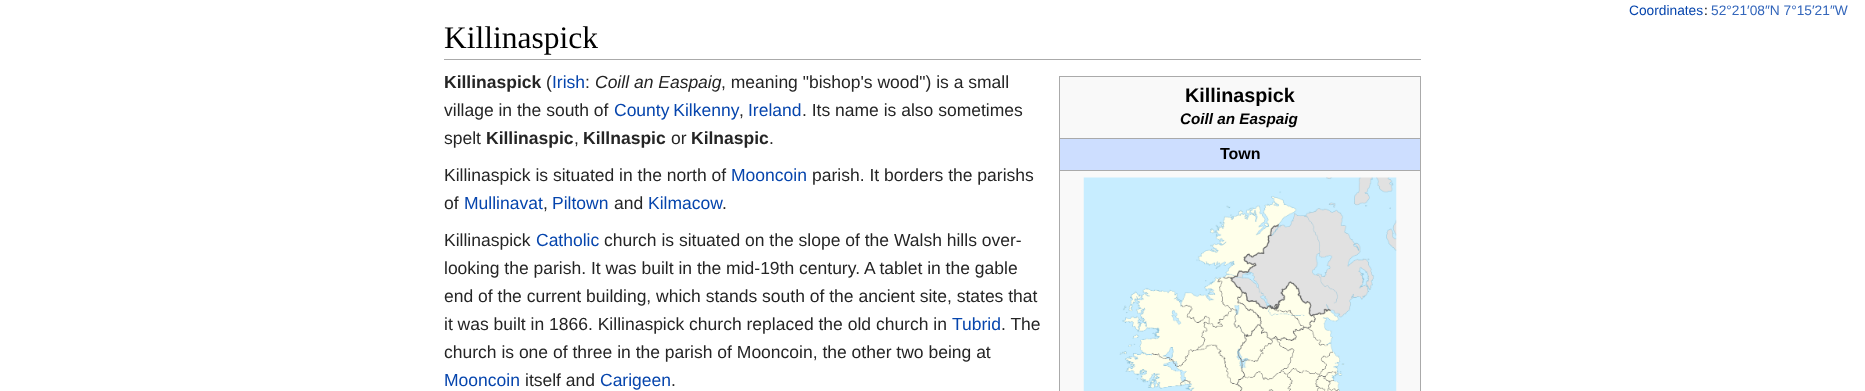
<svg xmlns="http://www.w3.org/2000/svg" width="1865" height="391">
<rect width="100%" height="100%" fill="#fff"/>
<text x="444" y="88" style="font-family:Liberation Sans;font-size:17.5px;font-weight:bold;fill:#252525">Killinaspick</text>
<text x="546" y="88" style="font-family:Liberation Sans;font-size:17.5px;fill:#252525">(</text>
<text x="552" y="88" style="font-family:Liberation Sans;font-size:17.5px;fill:#0645ad">Irish</text>
<text x="585" y="88" style="font-family:Liberation Sans;font-size:17.5px;fill:#252525">:</text>
<text x="595" y="88" style="font-family:Liberation Sans;font-size:17.5px;font-style:italic;fill:#252525">Coill an Easpaig</text>
<text x="721" y="88" style="font-family:Liberation Sans;font-size:17.5px;fill:#252525">, meaning "bishop's wood") is a small</text>
<text x="444" y="116" style="font-family:Liberation Sans;font-size:17.5px;fill:#252525">village in the south of</text>
<text x="614" y="116" word-spacing="-1" style="font-family:Liberation Sans;font-size:17.5px;fill:#0645ad">County Kilkenny</text>
<text x="739" y="116" style="font-family:Liberation Sans;font-size:17.5px;fill:#252525">,</text>
<text x="748" y="116" style="font-family:Liberation Sans;font-size:17.5px;fill:#0645ad">Ireland</text>
<text x="802" y="116" style="font-family:Liberation Sans;font-size:17.5px;fill:#252525">. Its name is also sometimes</text>
<text x="444" y="144" style="font-family:Liberation Sans;font-size:17.5px;fill:#252525">spelt</text>
<text x="486" y="144" style="font-family:Liberation Sans;font-size:17.5px;font-weight:bold;fill:#252525">Killinaspic</text>
<text x="574" y="144" style="font-family:Liberation Sans;font-size:17.5px;fill:#252525">,</text>
<text x="583" y="144" style="font-family:Liberation Sans;font-size:17.5px;font-weight:bold;fill:#252525">Killnaspic</text>
<text x="671" y="144" style="font-family:Liberation Sans;font-size:17.5px;fill:#252525">or</text>
<text x="691" y="144" style="font-family:Liberation Sans;font-size:17.5px;font-weight:bold;fill:#252525">Kilnaspic</text>
<text x="769" y="144" style="font-family:Liberation Sans;font-size:17.5px;fill:#252525">.</text>
<rect x="1060" y="77" width="360" height="314" fill="#f9f9f9"/>
<rect x="1059" y="76" width="362" height="1" fill="#aaa"/>
<rect x="1420" y="76" width="1" height="315" fill="#aaa"/>
<rect x="1059" y="76" width="1" height="315" fill="#aaa"/>
<text x="1629" y="15" style="font-family:Liberation Sans;font-size:13.75px;fill:#0645ad">Coordinates</text>
<text x="1704" y="15" style="font-family:Liberation Sans;font-size:13.75px;fill:#000">:</text>
<text x="1711" y="15" style="font-family:Liberation Sans;font-size:13.75px;fill:#36b">52°21′08″N 7°15′21″W</text>
<text x="1185" y="102" style="font-family:Liberation Sans;font-size:19.75px;font-weight:bold;fill:#000">Killinaspick</text>
<text x="1180" y="124" style="font-family:Liberation Sans;font-size:15.25px;font-weight:bold;font-style:italic;fill:#000">Coill an Easpaig</text>
<rect x="1060" y="139" width="360" height="31" fill="#cddeff"/>
<rect x="1059" y="138" width="362" height="1" fill="#aaa"/>
<text x="1220" y="159" style="font-family:Liberation Sans;font-size:16px;font-weight:bold;fill:#000">Town</text>
<rect x="1059" y="170" width="362" height="1" fill="#aaa"/>
<image x="1083" y="177" width="314" height="214" href="media/1.png"/>
<text x="444" y="181" style="font-family:Liberation Sans;font-size:17.5px;fill:#252525">Killinaspick is situated in the north of</text>
<text x="731" y="181" style="font-family:Liberation Sans;font-size:17.5px;fill:#0645ad">Mooncoin</text>
<text x="812" y="181" style="font-family:Liberation Sans;font-size:17.5px;fill:#252525">parish. It borders the parishs</text>
<text x="444" y="209" style="font-family:Liberation Sans;font-size:17.5px;fill:#252525">of</text>
<text x="464" y="209" style="font-family:Liberation Sans;font-size:17.5px;fill:#0645ad">Mullinavat</text>
<text x="543" y="209" style="font-family:Liberation Sans;font-size:17.5px;fill:#252525">,</text>
<text x="552" y="209" style="font-family:Liberation Sans;font-size:17.5px;fill:#0645ad">Piltown</text>
<text x="614" y="209" style="font-family:Liberation Sans;font-size:17.5px;fill:#252525">and</text>
<text x="648" y="209" style="font-family:Liberation Sans;font-size:17.5px;fill:#0645ad">Kilmacow</text>
<text x="722" y="209" style="font-family:Liberation Sans;font-size:17.5px;fill:#252525">.</text>
<text x="444" y="246" style="font-family:Liberation Sans;font-size:17.5px;fill:#252525">Killinaspick</text>
<text x="536" y="246" style="font-family:Liberation Sans;font-size:17.5px;fill:#0645ad">Catholic</text>
<text x="604" y="246" style="font-family:Liberation Sans;font-size:17.5px;fill:#252525">church is situated on the slope of the Walsh hills over-</text>
<text x="444" y="274" style="font-family:Liberation Sans;font-size:17.5px;fill:#252525">looking the parish. It was built in the mid-19th century. A tablet in the gable</text>
<text x="444" y="302" style="font-family:Liberation Sans;font-size:17.5px;fill:#252525">end of the current building, which stands south of the ancient site, states that</text>
<text x="444" y="330" style="font-family:Liberation Sans;font-size:17.5px;fill:#252525">it was built in 1866. Killinaspick church replaced the old church in</text>
<text x="952" y="330" style="font-family:Liberation Sans;font-size:17.5px;fill:#0645ad">Tubrid</text>
<text x="1001" y="330" style="font-family:Liberation Sans;font-size:17.5px;fill:#252525">. The</text>
<text x="444" y="358" style="font-family:Liberation Sans;font-size:17.5px;fill:#252525">church is one of three in the parish of Mooncoin, the other two being at</text>
<text x="444" y="386" style="font-family:Liberation Sans;font-size:17.5px;fill:#0645ad">Mooncoin</text>
<text x="525" y="386" style="font-family:Liberation Sans;font-size:17.5px;fill:#252525">itself and</text>
<text x="600" y="386" style="font-family:Liberation Sans;font-size:17.5px;fill:#0645ad">Carigeen</text>
<text x="671" y="386" style="font-family:Liberation Sans;font-size:17.5px;fill:#252525">.</text>
<rect x="444" y="59" width="977" height="1" fill="#aaa"/>
<text x="444" y="48" style="font-family:Liberation Serif;font-size:31.5px;fill:#000">Killinaspick</text>
</svg>
